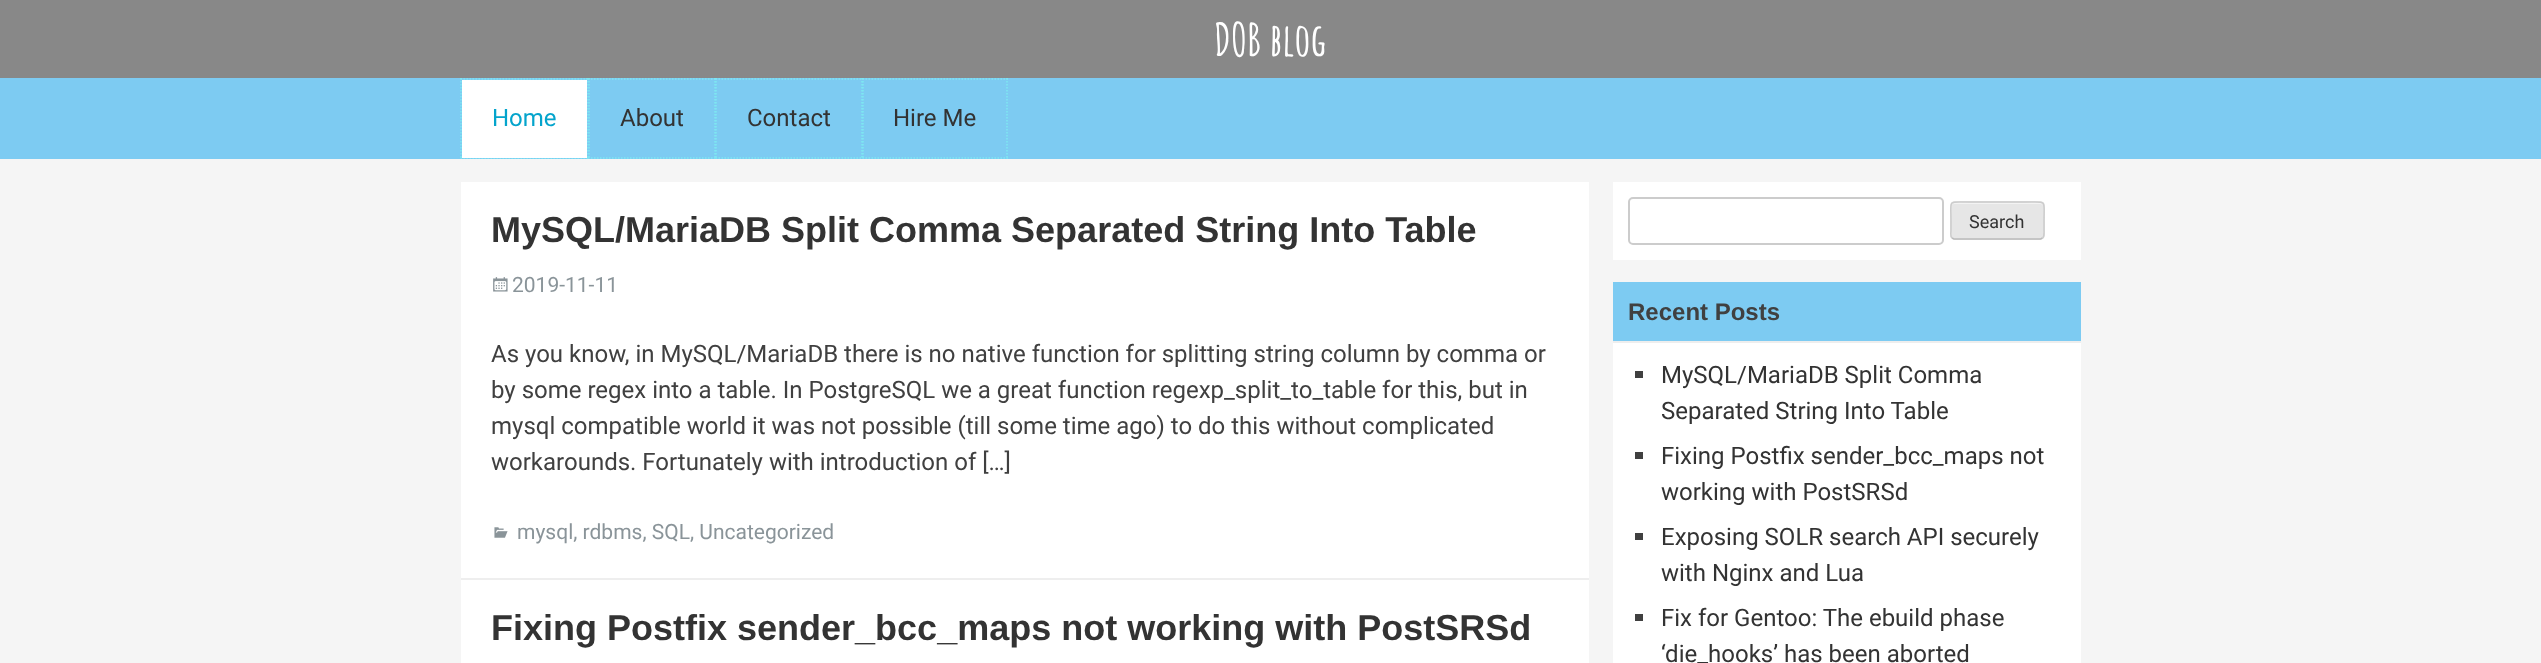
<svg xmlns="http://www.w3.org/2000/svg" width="2541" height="663">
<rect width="100%" height="100%" fill="#f5f5f5"/>
<rect y="78" width="2541" height="81" fill="#7dcbf2"/>
<rect width="2541" height="78" fill="#888"/>
<text x="1214" y="56" style="font-family:Amatic SC;font-size:45px;font-weight:bold;fill:#fff">DOB blog</text>
<path d="M460.5 79h127.5" fill="none" stroke="#7de9f2" stroke-width="1.5" stroke-dasharray="1.5 1.5"/>
<path d="M587 78v81" fill="none" stroke="#7de9f2" stroke-width="1.5" stroke-dasharray="1.5 1.5"/>
<path d="M460.5 158h127.5" fill="none" stroke="#7de9f2" stroke-width="1.5" stroke-dasharray="1.5 1.5"/>
<path d="M461 78v81" fill="none" stroke="#7de9f2" stroke-width="1.5" stroke-dasharray="1.5 1.5"/>
<rect x="462" y="80" width="125" height="78" fill="#fff"/>
<text x="492" y="126" style="font-family:Roboto;font-size:24px;fill:#04a4cc">Home</text>
<path d="M588 79h127.5" fill="none" stroke="#7de9f2" stroke-width="1.5" stroke-dasharray="1.5 1.5"/>
<path d="M715 78v81" fill="none" stroke="#7de9f2" stroke-width="1.5" stroke-dasharray="1.5 1.5"/>
<path d="M588 158h127.5" fill="none" stroke="#7de9f2" stroke-width="1.5" stroke-dasharray="1.5 1.5"/>
<path d="M589 78v81" fill="none" stroke="#7de9f2" stroke-width="1.5" stroke-dasharray="1.5 1.5"/>
<text x="620" y="126" style="font-family:Roboto;font-size:24px;fill:#333">About</text>
<path d="M715.5 79h147" fill="none" stroke="#7de9f2" stroke-width="1.5" stroke-dasharray="1.5 1.5"/>
<path d="M862 78v81" fill="none" stroke="#7de9f2" stroke-width="1.5" stroke-dasharray="1.5 1.5"/>
<path d="M715.5 158h147" fill="none" stroke="#7de9f2" stroke-width="1.5" stroke-dasharray="1.5 1.5"/>
<path d="M716 78v81" fill="none" stroke="#7de9f2" stroke-width="1.5" stroke-dasharray="1.5 1.5"/>
<text x="747" y="126" style="font-family:Roboto;font-size:24px;fill:#333">Contact</text>
<path d="M862.5 79h145.5" fill="none" stroke="#7de9f2" stroke-width="1.5" stroke-dasharray="1.5 1.5"/>
<path d="M1007 78v81" fill="none" stroke="#7de9f2" stroke-width="1.5" stroke-dasharray="1.5 1.5"/>
<path d="M862.5 158h145.5" fill="none" stroke="#7de9f2" stroke-width="1.5" stroke-dasharray="1.5 1.5"/>
<path d="M863 78v81" fill="none" stroke="#7de9f2" stroke-width="1.5" stroke-dasharray="1.5 1.5"/>
<text x="893" y="126" style="font-family:Roboto;font-size:24px;fill:#333">Hire Me</text>
<rect x="461" y="182" width="1128" height="481" fill="#fff"/>
<rect x="461" y="578" width="1128" height="2" fill="#eee"/>
<text x="491" y="242" style="font-family:Liberation Sans;font-size:36px;font-weight:bold;fill:#333">MySQL/MariaDB Split Comma Separated String Into Table</text>
<image x="493" y="277" width="15" height="15" href="media/1.png"/>
<text x="512" y="292" style="font-family:Roboto;font-size:21px;fill:#8a9499">2019-11-11</text>
<text x="491" y="362" style="font-family:Roboto;font-size:24px;fill:#404040">As you know, in MySQL/MariaDB there is no native function for splitting string column by comma or</text>
<text x="491" y="398" style="font-family:Roboto;font-size:24px;fill:#404040">by some regex into a table. In PostgreSQL we a great function regexp_split_to_table for this, but in</text>
<text x="491" y="434" style="font-family:Roboto;font-size:24px;fill:#404040">mysql compatible world it was not possible (till some time ago) to do this without complicated</text>
<text x="491" y="470" style="font-family:Roboto;font-size:24px;fill:#404040">workarounds. Fortunately with introduction of […]</text>
<image x="494" y="527" width="14" height="11" href="media/2.png"/>
<text x="517" y="539" style="font-family:Roboto;font-size:21px;fill:#8a9499">mysql, rdbms, SQL, Uncategorized</text>
<text x="491" y="640" style="font-family:Liberation Sans;font-size:36px;font-weight:bold;fill:#333">Fixing Postfix sender_bcc_maps not working with PostSRSd</text>
<rect x="1613" y="182" width="468" height="78" fill="#fff"/>
<rect x="1629" y="198" width="314" height="46" rx="4" fill="none" stroke="#ccc" stroke-width="2"/>
<rect x="1950" y="201" width="95" height="39" rx="5" fill="#e6e6e6"/>
<path d="M1954 204h86c2 0 3 1 3 3c0-8-14-4-17-4h-57c-3 0-17-4-17 4c0-2 1-3 2-3z" fill="#f3f3f3"/>
<path d="M2042.5 238l-2 1h-86.5l-2-1" fill="none" stroke="#bbb" stroke-width="1.5"/>
<path d="M1952 238c-2-1.5-1-5.5-1-7.5v-10c0-21.5-4-18.5 18-18.5h57c21.5 0 18-3 18 18.5v10c0 2 .5 6-1.5 7.5" fill="none" stroke="#ccc" stroke-width="1.5"/>
<text x="1969" y="228" style="font-family:Roboto;font-size:18px;fill:#333">Search</text>
<rect x="1613" y="343" width="468" height="320" fill="#fff"/>
<rect x="1613" y="282" width="468" height="59" fill="#7dcbf2"/>
<rect x="1613" y="341" width="468" height="2" fill="#eee"/>
<text x="1628" y="320" style="font-family:Liberation Sans;font-size:24px;font-weight:bold;fill:#404040">Recent Posts</text>
<rect x="1635" y="371" width="8" height="7" fill="#404040"/>
<text x="1661" y="383" style="font-family:Roboto;font-size:24px;fill:#333">MySQL/MariaDB Split Comma</text>
<text x="1661" y="419" style="font-family:Roboto;font-size:24px;fill:#333">Separated String Into Table</text>
<rect x="1635" y="452" width="8" height="7" fill="#404040"/>
<text x="1661" y="464" style="font-family:Roboto;font-size:24px;fill:#333">Fixing Postfix sender_bcc_maps not</text>
<text x="1661" y="500" style="font-family:Roboto;font-size:24px;fill:#333">working with PostSRSd</text>
<rect x="1635" y="533" width="8" height="7" fill="#404040"/>
<text x="1661" y="545" style="font-family:Roboto;font-size:24px;fill:#333">Exposing SOLR search API securely</text>
<text x="1661" y="581" style="font-family:Roboto;font-size:24px;fill:#333">with Nginx and Lua</text>
<rect x="1635" y="614" width="8" height="7" fill="#404040"/>
<text x="1661" y="626" style="font-family:Roboto;font-size:24px;fill:#333">Fix for Gentoo: The ebuild phase</text>
<text x="1661" y="662" style="font-family:Roboto;font-size:24px;fill:#333">‘die_hooks’ has been aborted</text>
</svg>
